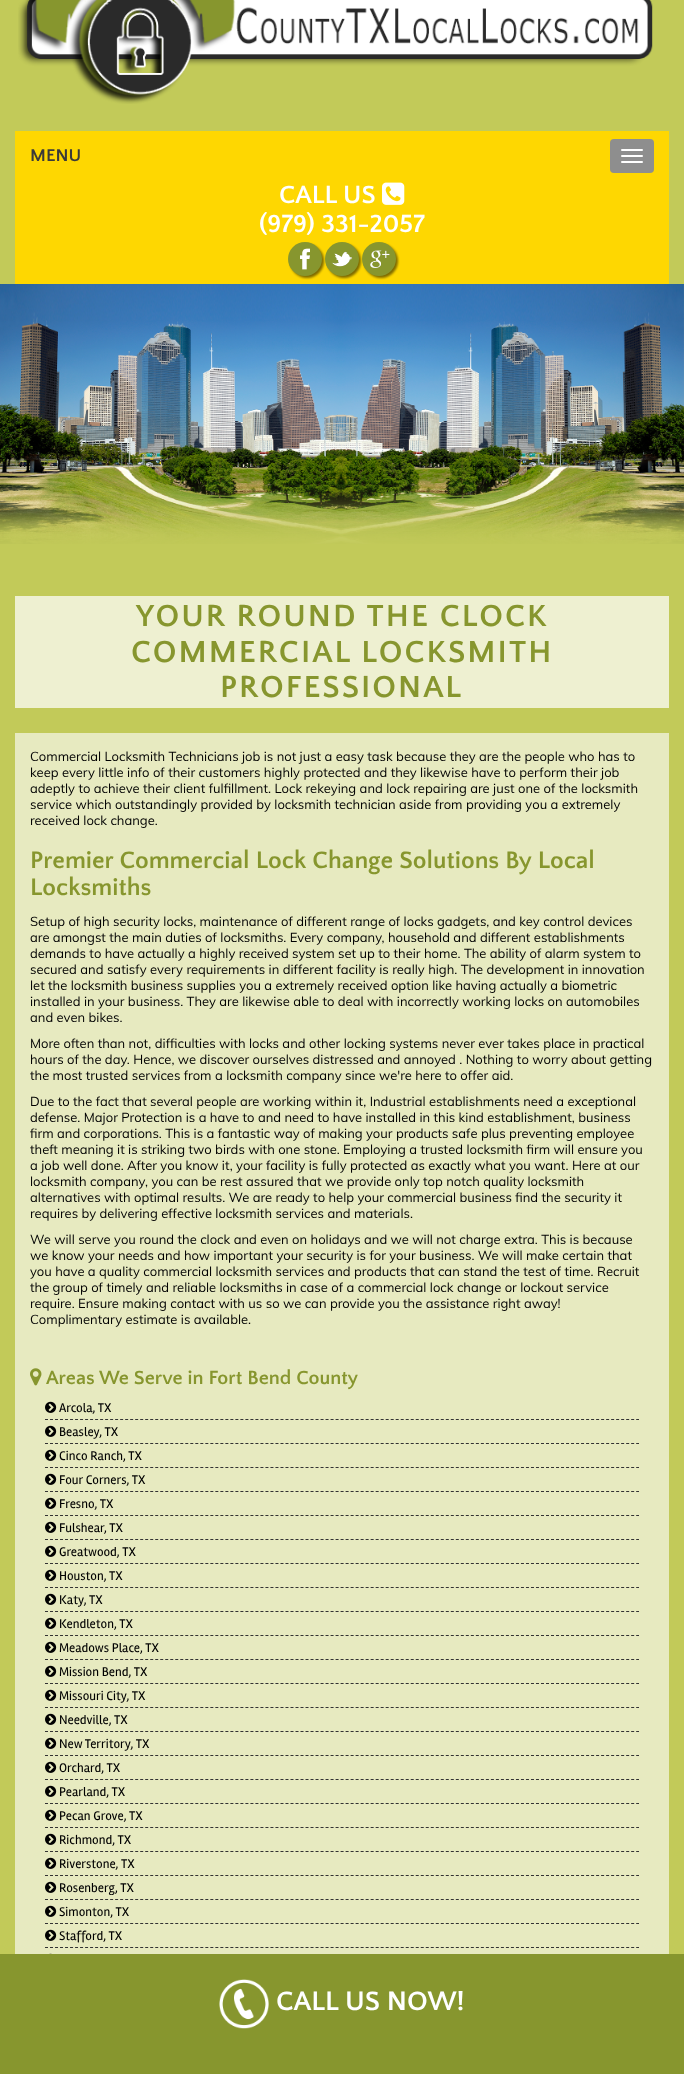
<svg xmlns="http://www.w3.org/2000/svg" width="684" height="2074">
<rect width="100%" height="100%" fill="#c2ca59"/>
<image x="18" y="0" width="635" height="104" href="media/1.png"/>
<rect x="15" y="131" width="654" height="153" fill="#fed701"/>
<text x="30" y="161" style="font-family:Quattrocento Sans;font-size:18px;font-weight:bold;fill:#3a3a3a">MENU</text>
<rect x="610" y="139" width="44" height="34" rx="4" fill="#8e8e8e"/>
<rect x="621" y="149" width="22" height="2" rx="1" fill="#fff"/>
<rect x="621" y="155" width="22" height="2" rx="1" fill="#fff"/>
<rect x="621" y="161" width="22" height="2" rx="1" fill="#fff"/>
<text x="279" y="203" style="font-family:Quattrocento Sans;font-size:26px;font-weight:bold;fill:#fff">CALL US</text>
<image x="382" y="182" width="23" height="23" href="media/2.png"/>
<text x="259" y="232" style="font-family:Quattrocento Sans;font-size:26px;font-weight:bold;fill:#fff">(979) 331-2057</text>
<rect x="290" y="244" width="34" height="34" rx="17" fill="#00000080" filter="blur(1px)"/>
<rect x="327" y="244" width="34" height="34" rx="17" fill="#00000080" filter="blur(1px)"/>
<rect x="364" y="244" width="34" height="34" rx="17" fill="#00000080" filter="blur(1px)"/>
<circle cx="305" cy="259" r="17" fill="#87962e"/>
<circle cx="342" cy="259" r="17" fill="#87962e"/>
<circle cx="379" cy="259" r="17" fill="#87962e"/>
<image x="300" y="248" width="10" height="22" href="media/3.png"/>
<image x="331" y="251" width="22" height="16" href="media/4.png"/>
<image x="370" y="250" width="20" height="18" href="media/5.png"/>
<image x="0" y="284" width="684" height="260" href="media/6.png"/>
<rect x="15" y="596" width="654" height="112" fill="#eef0d1"/>
<text x="136" y="626" style="font-family:Quattrocento Sans;font-size:32px;font-weight:bold;letter-spacing:2px;fill:#87962e">YOUR ROUND THE CLOCK</text>
<text x="131" y="662" style="font-family:Quattrocento Sans;font-size:32px;font-weight:bold;letter-spacing:2px;fill:#87962e">COMMERCIAL LOCKSMITH</text>
<text x="220" y="697" style="font-family:Quattrocento Sans;font-size:32px;font-weight:bold;letter-spacing:2px;fill:#87962e">PROFESSIONAL</text>
<rect x="15" y="733" width="654" height="1221" fill="#e7eac0"/>
<text x="30" y="761" style="font-family:Muli;font-size:13px;fill:#000">Commercial Locksmith Technicians job is not just a easy task because they are the people who has to</text>
<text x="30" y="777" style="font-family:Muli;font-size:13px;fill:#000">keep every little info of their customers highly protected and they likewise have to perform their job</text>
<text x="30" y="793" style="font-family:Muli;font-size:13px;fill:#000">adeptly to achieve their client fulfillment. Lock rekeying and lock repairing are just one of the locksmith</text>
<text x="30" y="809" style="font-family:Muli;font-size:13px;fill:#000">service which outstandingly provided by locksmith technician aside from providing you a extremely</text>
<text x="30" y="825" style="font-family:Muli;font-size:13px;fill:#000">received lock change.</text>
<text x="30" y="868" style="font-family:Quattrocento Sans;font-size:25px;font-weight:bold;fill:#87962e">Premier Commercial Lock Change Solutions By Local</text>
<text x="30" y="895" style="font-family:Quattrocento Sans;font-size:25px;font-weight:bold;fill:#87962e">Locksmiths</text>
<text x="30" y="926" style="font-family:Muli;font-size:13px;fill:#000">Setup of high security locks, maintenance of different range of locks gadgets, and key control devices</text>
<text x="30" y="942" style="font-family:Muli;font-size:13px;fill:#000">are amongst the main duties of locksmiths. Every company, household and different establishments</text>
<text x="30" y="958" style="font-family:Muli;font-size:13px;fill:#000">demands to have actually a highly received system set up to their home. The ability of alarm system to</text>
<text x="30" y="974" style="font-family:Muli;font-size:13px;fill:#000">secured and satisfy every requirements in different facility is really high. The development in innovation</text>
<text x="30" y="990" style="font-family:Muli;font-size:13px;fill:#000">let the locksmith business supplies you a extremely received option like having actually a biometric</text>
<text x="30" y="1006" style="font-family:Muli;font-size:13px;fill:#000">installed in your business. They are likewise able to deal with incorrectly working locks on automobiles</text>
<text x="30" y="1022" style="font-family:Muli;font-size:13px;fill:#000">and even bikes.</text>
<text x="30" y="1048" style="font-family:Muli;font-size:13px;fill:#000">More often than not, difficulties with locks and other locking systems never ever takes place in practical</text>
<text x="30" y="1064" style="font-family:Muli;font-size:13px;fill:#000">hours of the day. Hence, we discover ourselves distressed and annoyed . Nothing to worry about getting</text>
<text x="30" y="1080" style="font-family:Muli;font-size:13px;fill:#000">the most trusted services from a locksmith company since we're here to offer aid.</text>
<text x="30" y="1106" style="font-family:Muli;font-size:13px;fill:#000">Due to the fact that several people are working within it, Industrial establishments need a exceptional</text>
<text x="30" y="1122" style="font-family:Muli;font-size:13px;fill:#000">defense. Major Protection is a have to and need to have installed in this kind establishment, business</text>
<text x="30" y="1138" style="font-family:Muli;font-size:13px;fill:#000">firm and corporations. This is a fantastic way of making your products safe plus preventing employee</text>
<text x="30" y="1154" style="font-family:Muli;font-size:13px;fill:#000">theft meaning it is striking two birds with one stone. Employing a trusted locksmith firm will ensure you</text>
<text x="30" y="1170" style="font-family:Muli;font-size:13px;fill:#000">a job well done. After you know it, your facility is fully protected as exactly what you want. Here at our</text>
<text x="30" y="1186" style="font-family:Muli;font-size:13px;fill:#000">locksmith company, you can be rest assured that we provide only top notch quality locksmith</text>
<text x="30" y="1202" style="font-family:Muli;font-size:13px;fill:#000">alternatives with optimal results. We are ready to help your commercial business find the security it</text>
<text x="30" y="1218" style="font-family:Muli;font-size:13px;fill:#000">requires by delivering effective locksmith services and materials.</text>
<text x="30" y="1244" style="font-family:Muli;font-size:13px;fill:#000">We will serve you round the clock and even on holidays and we will not charge extra. This is because</text>
<text x="30" y="1260" style="font-family:Muli;font-size:13px;fill:#000">we know your needs and how important your security is for your business. We will make certain that</text>
<text x="30" y="1276" style="font-family:Muli;font-size:13px;fill:#000">you have a quality commercial locksmith services and products that can stand the test of time. Recruit</text>
<text x="30" y="1292" style="font-family:Muli;font-size:13px;fill:#000">the group of timely and reliable locksmiths in case of a commercial lock change or lockout service</text>
<text x="30" y="1308" style="font-family:Muli;font-size:13px;fill:#000">require. Ensure making contact with us so we can provide you the assistance right away!</text>
<text x="30" y="1324" style="font-family:Muli;font-size:13px;fill:#000">Complimentary estimate is available.</text>
<image x="30" y="1368" width="12" height="18" href="media/7.png"/>
<text x="46" y="1384" style="font-family:Quattrocento Sans;font-size:20px;font-weight:bold;fill:#87962e">Areas We Serve in Fort Bend County</text>
<path d="M45 1419.5h594" fill="none" stroke="#333" stroke-dasharray="3 2.01"/>
<image x="45" y="1401" width="12" height="12" href="media/8.png"/>
<text x="59" y="1412" style="font-family:Rambla;font-size:13px;fill:#000">Arcola, TX</text>
<path d="M45 1443.5h594" fill="none" stroke="#333" stroke-dasharray="3 2.01"/>
<image x="45" y="1425" width="12" height="12" href="media/8.png"/>
<text x="59" y="1436" style="font-family:Rambla;font-size:13px;fill:#000">Beasley, TX</text>
<path d="M45 1467.5h594" fill="none" stroke="#333" stroke-dasharray="3 2.01"/>
<image x="45" y="1449" width="12" height="12" href="media/8.png"/>
<text x="59" y="1460" style="font-family:Rambla;font-size:13px;fill:#000">Cinco Ranch, TX</text>
<path d="M45 1491.5h594" fill="none" stroke="#333" stroke-dasharray="3 2.01"/>
<image x="45" y="1473" width="12" height="12" href="media/8.png"/>
<text x="59" y="1484" style="font-family:Rambla;font-size:13px;fill:#000">Four Corners, TX</text>
<path d="M45 1515.5h594" fill="none" stroke="#333" stroke-dasharray="3 2.01"/>
<image x="45" y="1497" width="12" height="12" href="media/8.png"/>
<text x="59" y="1508" style="font-family:Rambla;font-size:13px;fill:#000">Fresno, TX</text>
<path d="M45 1539.5h594" fill="none" stroke="#333" stroke-dasharray="3 2.01"/>
<image x="45" y="1521" width="12" height="12" href="media/8.png"/>
<text x="59" y="1532" style="font-family:Rambla;font-size:13px;fill:#000">Fulshear, TX</text>
<path d="M45 1563.5h594" fill="none" stroke="#333" stroke-dasharray="3 2.01"/>
<image x="45" y="1545" width="12" height="12" href="media/8.png"/>
<text x="59" y="1556" style="font-family:Rambla;font-size:13px;fill:#000">Greatwood, TX</text>
<path d="M45 1587.5h594" fill="none" stroke="#333" stroke-dasharray="3 2.01"/>
<image x="45" y="1569" width="12" height="12" href="media/8.png"/>
<text x="59" y="1580" style="font-family:Rambla;font-size:13px;fill:#000">Houston, TX</text>
<path d="M45 1611.5h594" fill="none" stroke="#333" stroke-dasharray="3 2.01"/>
<image x="45" y="1593" width="12" height="12" href="media/8.png"/>
<text x="59" y="1604" style="font-family:Rambla;font-size:13px;fill:#000">Katy, TX</text>
<path d="M45 1635.5h594" fill="none" stroke="#333" stroke-dasharray="3 2.01"/>
<image x="45" y="1617" width="12" height="12" href="media/8.png"/>
<text x="59" y="1628" style="font-family:Rambla;font-size:13px;fill:#000">Kendleton, TX</text>
<path d="M45 1659.5h594" fill="none" stroke="#333" stroke-dasharray="3 2.01"/>
<image x="45" y="1641" width="12" height="12" href="media/8.png"/>
<text x="59" y="1652" style="font-family:Rambla;font-size:13px;fill:#000">Meadows Place, TX</text>
<path d="M45 1683.5h594" fill="none" stroke="#333" stroke-dasharray="3 2.01"/>
<image x="45" y="1665" width="12" height="12" href="media/8.png"/>
<text x="59" y="1676" style="font-family:Rambla;font-size:13px;fill:#000">Mission Bend, TX</text>
<path d="M45 1707.5h594" fill="none" stroke="#333" stroke-dasharray="3 2.01"/>
<image x="45" y="1689" width="12" height="12" href="media/8.png"/>
<text x="59" y="1700" style="font-family:Rambla;font-size:13px;fill:#000">Missouri City, TX</text>
<path d="M45 1731.5h594" fill="none" stroke="#333" stroke-dasharray="3 2.01"/>
<image x="45" y="1713" width="12" height="12" href="media/8.png"/>
<text x="59" y="1724" style="font-family:Rambla;font-size:13px;fill:#000">Needville, TX</text>
<path d="M45 1755.5h594" fill="none" stroke="#333" stroke-dasharray="3 2.01"/>
<image x="45" y="1737" width="12" height="12" href="media/8.png"/>
<text x="59" y="1748" style="font-family:Rambla;font-size:13px;fill:#000">New Territory, TX</text>
<path d="M45 1779.5h594" fill="none" stroke="#333" stroke-dasharray="3 2.01"/>
<image x="45" y="1761" width="12" height="12" href="media/8.png"/>
<text x="59" y="1772" style="font-family:Rambla;font-size:13px;fill:#000">Orchard, TX</text>
<path d="M45 1803.5h594" fill="none" stroke="#333" stroke-dasharray="3 2.01"/>
<image x="45" y="1785" width="12" height="12" href="media/8.png"/>
<text x="59" y="1796" style="font-family:Rambla;font-size:13px;fill:#000">Pearland, TX</text>
<path d="M45 1827.5h594" fill="none" stroke="#333" stroke-dasharray="3 2.01"/>
<image x="45" y="1809" width="12" height="12" href="media/8.png"/>
<text x="59" y="1820" style="font-family:Rambla;font-size:13px;fill:#000">Pecan Grove, TX</text>
<path d="M45 1851.5h594" fill="none" stroke="#333" stroke-dasharray="3 2.01"/>
<image x="45" y="1833" width="12" height="12" href="media/8.png"/>
<text x="59" y="1844" style="font-family:Rambla;font-size:13px;fill:#000">Richmond, TX</text>
<path d="M45 1875.5h594" fill="none" stroke="#333" stroke-dasharray="3 2.01"/>
<image x="45" y="1857" width="12" height="12" href="media/8.png"/>
<text x="59" y="1868" style="font-family:Rambla;font-size:13px;fill:#000">Riverstone, TX</text>
<path d="M45 1899.5h594" fill="none" stroke="#333" stroke-dasharray="3 2.01"/>
<image x="45" y="1881" width="12" height="12" href="media/8.png"/>
<text x="59" y="1892" style="font-family:Rambla;font-size:13px;fill:#000">Rosenberg, TX</text>
<path d="M45 1923.5h594" fill="none" stroke="#333" stroke-dasharray="3 2.01"/>
<image x="45" y="1905" width="12" height="12" href="media/8.png"/>
<text x="59" y="1916" style="font-family:Rambla;font-size:13px;fill:#000">Simonton, TX</text>
<path d="M45 1947.5h594" fill="none" stroke="#333" stroke-dasharray="3 2.01"/>
<image x="45" y="1929" width="12" height="12" href="media/8.png"/>
<text x="59" y="1940" style="font-family:Rambla;font-size:13px;fill:#000">Stafford, TX</text>
<image x="49" y="1953" width="3" height="1" href="media/9.png"/>
<rect y="1954" width="684" height="120" fill="#87962e"/>
<image x="219" y="1979" width="50" height="50" href="media/10.png"/>
<text x="276" y="2010" style="font-family:Quattrocento Sans;font-size:28px;font-weight:bold;fill:#fff">CALL US NOW!</text>
</svg>
